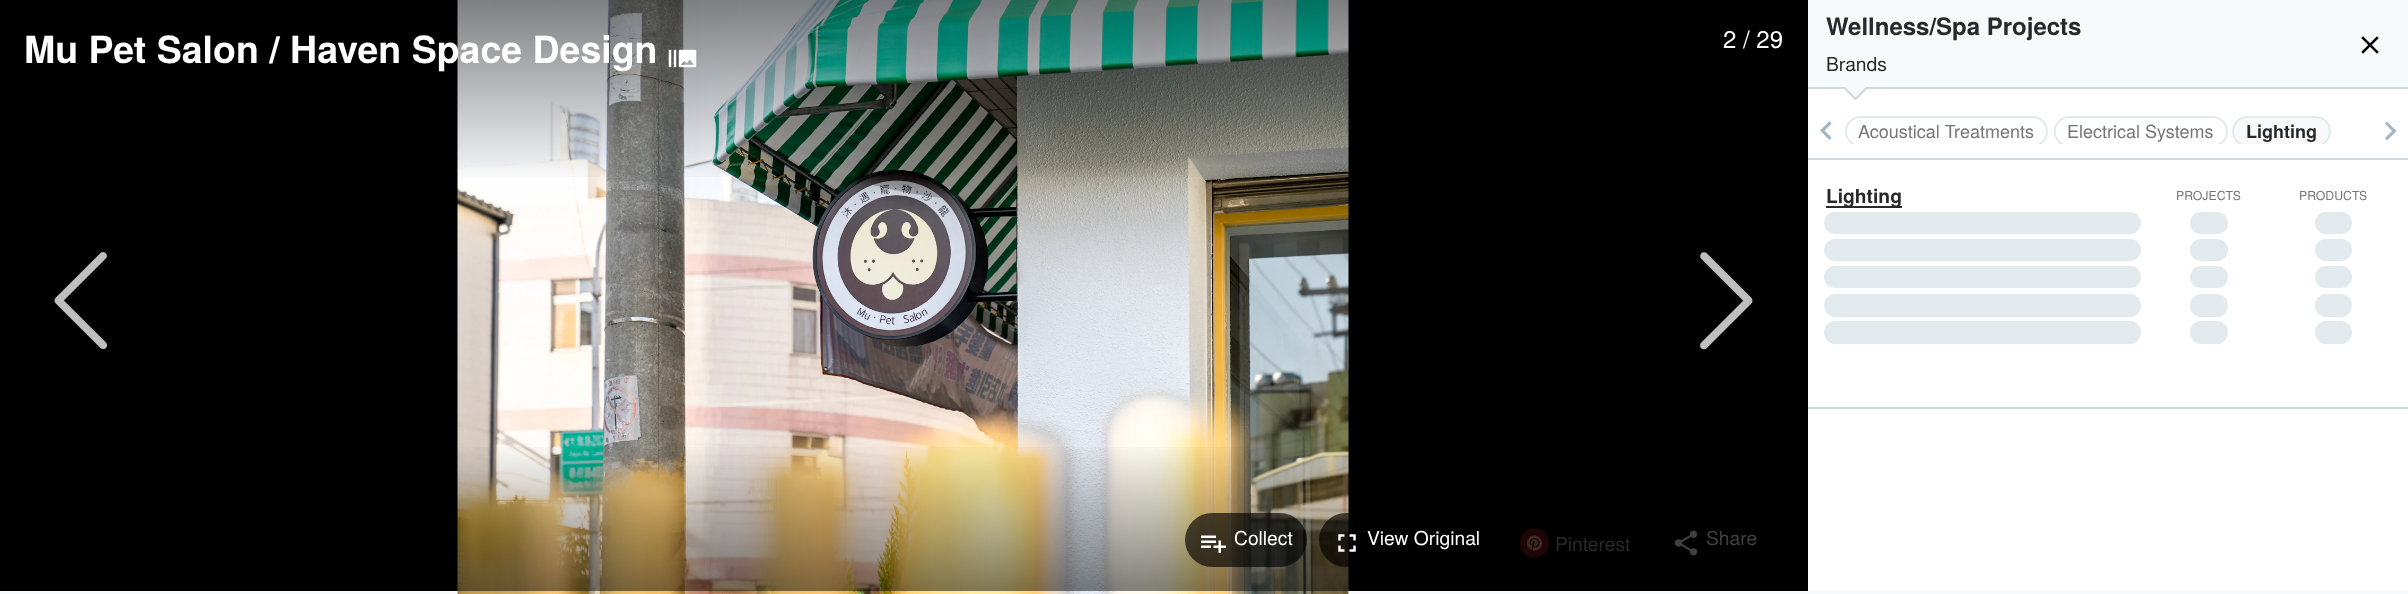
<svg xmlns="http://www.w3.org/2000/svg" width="2408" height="594">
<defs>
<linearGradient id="g1" gradientUnits="userSpaceOnUse" x1="904" y1="-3" x2="904" y2="185"><stop offset="0" stop-color="#000" stop-opacity="0.5"/><stop offset="1" stop-color="#000" stop-opacity="0"/></linearGradient>
<linearGradient id="g2" gradientUnits="userSpaceOnUse" x1="904" y1="591" x2="904" y2="441"><stop offset="0" stop-color="#000" stop-opacity="0.5"/><stop offset="1" stop-color="#000" stop-opacity="0"/></linearGradient>
<clipPath id="clip1"><rect x="1845" y="107" width="527" height="37"/></clipPath>
</defs>
<rect width="100%" height="100%" fill="#f7f9fa"/>
<rect width="1808" height="591" fill="#000"/>
<image x="457" y="0" width="892" height="594" href="media/1.png"/>
<rect x="457" width="892" height="177" fill="url(#g1)"/>
<text x="24" y="63" style="font-family:TeX Gyre Heros;font-size:37.5px;font-weight:bold;fill:#fff">Mu Pet Salon / Haven Space Design</text>
<image x="668" y="49" width="29" height="19" href="media/2.png"/>
<text x="1723" y="48" style="font-family:TeX Gyre Heros;font-size:24px;fill:#fff">2 / 29</text>
<image x="54" y="252" width="53" height="97" href="media/3.png"/>
<image x="1700" y="252" width="53" height="98" href="media/4.png"/>
<rect x="457" y="447" width="892" height="144" fill="url(#g2)"/>
<rect x="1185" y="513" width="122" height="54" rx="27" fill="#000000a6"/>
<image x="1201" y="535" width="25" height="18" href="media/5.png"/>
<text x="1234" y="545" style="font-family:TeX Gyre Heros;font-size:19.25px;fill:#fff">Collect</text>
<rect x="1319" y="513" width="175" height="54" rx="27" fill="#000000a6"/>
<image x="1338" y="534" width="18" height="18" href="media/6.png"/>
<text x="1367" y="545" style="font-family:TeX Gyre Heros;font-size:19.25px;fill:#fff">View Original</text>
<image x="1520" y="528" width="29" height="30" href="media/7.png"/>
<text x="1555" y="551" style="font-family:TeX Gyre Heros;font-size:19.25px;fill:#292929">Pinterest</text>
<image x="1674" y="530" width="24" height="26" href="media/8.png"/>
<text x="1706" y="545" style="font-family:TeX Gyre Heros;font-size:19.25px;fill:#404040">Share</text>
<rect x="1808" y="89" width="600" height="502" fill="#fff"/>
<rect x="1808" y="87" width="600" height="2" fill="#ced9df"/>
<text x="1826" y="35" style="font-family:TeX Gyre Heros;font-size:24px;font-weight:bold;fill:#292929">Wellness/Spa Projects</text>
<text x="1826" y="71" style="font-family:TeX Gyre Heros;font-size:19.25px;fill:#292929">Brands</text>
<path d="M1842 87h27l-13.5 13.5z" fill="#ced9df"/>
<path d="M1843.5 85.5h24l-12 12z" fill="#f7f9fa"/>
<path d="M1831.5 137.5l-2 2.5l-9.5-9.5l9.5-9.5l2 2.5l-7 7z" fill="#a2b7c3"/>
<g clip-path="url(#clip1)">
<rect x="1846" y="117" width="201" height="29" rx="14.5" fill="none" stroke="#e3eaed" stroke-width="2"/>
</g>
<text x="1858" y="138" style="font-family:TeX Gyre Heros;font-size:18px;fill:#757575">Acoustical Treatments</text>
<g clip-path="url(#clip1)">
<rect x="2055" y="117" width="172" height="29" rx="14.5" fill="none" stroke="#e3eaed" stroke-width="2"/>
</g>
<text x="2067" y="138" style="font-family:TeX Gyre Heros;font-size:18px;fill:#757575">Electrical Systems</text>
<g clip-path="url(#clip1)">
<rect x="2233" y="117" width="97" height="29" rx="14.5" fill="#f7f9fa" stroke="#e3eaed" stroke-width="2"/>
</g>
<text x="2246" y="138" style="font-family:TeX Gyre Heros;font-size:18px;font-weight:bold;fill:#292929">Lighting</text>
<path d="M2385 138l7-7l-7-7.5l2-2l9.5 9.5l-9.5 9.5z" fill="#a2b7c3"/>
<rect x="1808" y="158" width="600" height="2" fill="#ced9df"/>
<rect x="1826" y="206" width="76" height="2" fill="#292929"/>
<text x="1826" y="203" style="font-family:TeX Gyre Heros;font-size:19.25px;font-weight:bold;fill:#292929">Lighting</text>
<text x="2176" y="200" style="font-family:TeX Gyre Heros;font-size:12.25px;fill:#757575">PROJECTS</text>
<text x="2299" y="200" style="font-family:TeX Gyre Heros;font-size:12.25px;fill:#757575">PRODUCTS</text>
<rect x="1824" y="212" width="317" height="22" rx="11" fill="#e3eaed"/>
<rect x="2190" y="212" width="38" height="22" rx="11" fill="#e3eaed"/>
<rect x="2315" y="212" width="37" height="22" rx="11" fill="#e3eaed"/>
<rect x="1824" y="239" width="317" height="22" rx="11" fill="#e3eaed"/>
<rect x="2190" y="239" width="38" height="22" rx="11" fill="#e3eaed"/>
<rect x="2315" y="239" width="37" height="22" rx="11" fill="#e3eaed"/>
<rect x="1824" y="266" width="317" height="22" rx="11" fill="#e3eaed"/>
<rect x="2190" y="266" width="38" height="22" rx="11" fill="#e3eaed"/>
<rect x="2315" y="266" width="37" height="22" rx="11" fill="#e3eaed"/>
<rect x="1824" y="294" width="317" height="23" rx="11.5" fill="#e3eaed"/>
<rect x="2190" y="294" width="38" height="23" rx="11.5" fill="#e3eaed"/>
<rect x="2315" y="294" width="37" height="23" rx="11.5" fill="#e3eaed"/>
<rect x="1824" y="321" width="317" height="23" rx="11.5" fill="#e3eaed"/>
<rect x="2190" y="321" width="38" height="23" rx="11.5" fill="#e3eaed"/>
<rect x="2315" y="321" width="37" height="23" rx="11.5" fill="#e3eaed"/>
<rect x="1808" y="407" width="600" height="2" fill="#ced9df"/>
<image x="2361" y="36" width="18" height="18" href="media/9.png"/>
</svg>
